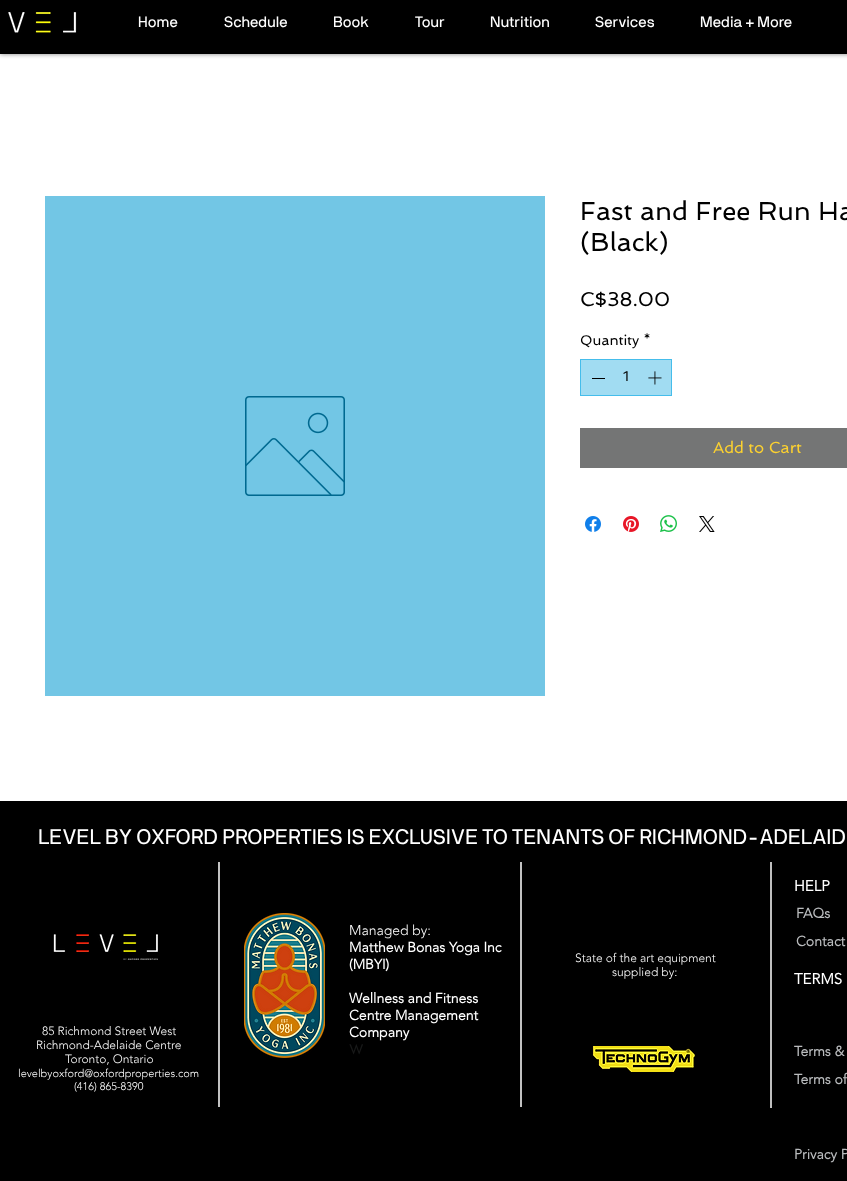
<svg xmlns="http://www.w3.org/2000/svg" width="847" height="1181">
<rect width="100%" height="100%" fill="#fff"/>
<rect width="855" height="54" fill="#00000080" filter="blur(2.5px)"/>
<rect width="847" height="54" fill="#000"/>
<image x="8" y="12" width="69" height="21" href="media/1.png"/>
<text x="138" y="27" style="font-family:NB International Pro;font-size:15px;fill:#fff">Home</text>
<text x="224" y="27" style="font-family:NB International Pro;font-size:15px;fill:#fff">Schedule</text>
<text x="333" y="27" style="font-family:NB International Pro;font-size:15px;fill:#fff">Book</text>
<text x="415" y="27" style="font-family:NB International Pro;font-size:15px;fill:#fff">Tour</text>
<text x="490" y="27" style="font-family:NB International Pro;font-size:15px;fill:#fff">Nutrition</text>
<text x="595" y="27" style="font-family:NB International Pro;font-size:15px;fill:#fff">Services</text>
<text x="700" y="27" style="font-family:NB International Pro;font-size:15px;fill:#fff">Media + More</text>
<rect x="45" y="196" width="500" height="500" fill="#72c6e5"/>
<image x="245" y="396" width="100" height="100" href="media/2.png"/>
<text x="580" y="220" style="font-family:Spinnaker;font-size:26px;fill:#000">Fast and Free Run Ha</text>
<text x="580" y="251" style="font-family:Spinnaker;font-size:26px;fill:#000">(Black)</text>
<text x="580" y="306" style="font-family:Spinnaker;font-size:20px;fill:#000">C$38.00</text>
<text x="580" y="345" style="font-family:Spinnaker;font-size:14px;fill:#000">Quantity *</text>
<rect x="580.5" y="359.5" width="91" height="36" fill="#a1dcf2" stroke="#45bdeb"/>
<rect x="592" y="378" width="13" height="1" fill="#000"/>
<text x="623" y="381" style="font-family:Spinnaker;font-size:14px;fill:#000">1</text>
<image x="648" y="371" width="14" height="14" href="media/3.png"/>
<rect x="580" y="428" width="267" height="40" fill="#747575"/>
<text x="713" y="453" style="font-family:Spinnaker;font-size:16px;fill:#fcd130">Add to Cart</text>
<image x="585" y="516" width="16" height="16" href="media/4.png"/>
<image x="623" y="516" width="16" height="16" href="media/5.png"/>
<image x="660" y="515" width="17" height="17" href="media/6.png"/>
<image x="699" y="516" width="16" height="16" href="media/7.png"/>
<rect y="801" width="847" height="380" fill="#000"/>
<text x="38" y="844" style="font-family:NB International Pro;font-size:21px;fill:#fff">LEVEL BY OXFORD PROPERTIES IS EXCLUSIVE TO TENANTS OF RICHMOND-ADELAID</text>
<rect x="218" y="862" width="2" height="245" fill="#c2c2c2"/>
<rect x="520" y="862" width="2" height="245" fill="#c2c2c2"/>
<rect x="770" y="862" width="2" height="246" fill="#bfbfbf"/>
<text x="794" y="891" style="font-family:'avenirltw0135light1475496';font-size:15px;font-weight:bold;fill:#fff">HELP</text>
<image x="53" y="934" width="105" height="26" href="media/8.png"/>
<image x="244" y="913" width="81" height="145" href="media/9.png"/>
<text x="349" y="935" style="font-family:'avenirltw0135light1475496';font-size:14px;font-weight:300;fill:#fff">Managed by:</text>
<text x="349" y="952" style="font-family:'avenirltw0135light1475496';font-size:14px;font-weight:bold;fill:#fff">Matthew Bonas Yoga Inc</text>
<text x="349" y="969" style="font-family:'avenirltw0135light1475496';font-size:14px;font-weight:bold;fill:#fff">(MBYI)</text>
<text x="349" y="1003" style="font-family:'avenirltw0135light1475496';font-size:14px;font-weight:bold;fill:#fff">Wellness and Fitness</text>
<text x="349" y="1020" style="font-family:'avenirltw0135light1475496';font-size:14px;font-weight:bold;fill:#fff">Centre Management</text>
<text x="349" y="1037" style="font-family:'avenirltw0135light1475496';font-size:14px;font-weight:bold;fill:#fff">Company</text>
<text x="349" y="1054" style="font-family:Spinnaker;font-size:14px;fill:#181919">W</text>
<text x="796" y="918" style="font-family:'avenirltw0135light1475496';font-size:14px;font-weight:bold;fill:#b9bbbd">FAQs</text>
<text x="796" y="946" style="font-family:'avenirltw0135light1475496';font-size:14px;font-weight:bold;fill:#b9bbbd">Contact</text>
<text x="575" y="962" style="font-family:'avenirltw0135light1475496';font-size:12px;font-weight:300;fill:#fff">State of the art equipment</text>
<text x="612" y="976" style="font-family:'avenirltw0135light1475496';font-size:12px;font-weight:300;fill:#fff">supplied by:</text>
<text x="794" y="984" style="font-family:'avenirltw0135light1475496';font-size:15px;font-weight:bold;fill:#fff">TERMS</text>
<text x="42" y="1035" style="font-family:'avenirltw0135light1475496';font-size:12px;font-weight:300;fill:#fff">85 Richmond Street West</text>
<text x="36" y="1049" style="font-family:'avenirltw0135light1475496';font-size:12px;font-weight:300;fill:#fff">Richmond-Adelaide Centre</text>
<text x="65" y="1063" style="font-family:'avenirltw0135light1475496';font-size:12px;font-weight:300;fill:#fff">Toronto, Ontario</text>
<text x="18" y="1077" style="font-family:'avenirltw0135light1475496';font-size:11px;font-weight:300;fill:#fff">levelbyoxford@oxfordproperties.com</text>
<text x="74" y="1090" style="font-family:'avenirltw0135light1475496';font-size:11px;font-weight:300;fill:#fff">(416) 865-8390</text>
<image x="592" y="1046" width="103" height="26" href="media/10.png"/>
<text x="794" y="1056" style="font-family:'avenirltw0135light1475496';font-size:14px;font-weight:bold;fill:#b9bbbd">Terms &amp;</text>
<text x="794" y="1084" style="font-family:'avenirltw0135light1475496';font-size:14px;font-weight:bold;fill:#b9bbbd">Terms of</text>
<text x="794" y="1159" style="font-family:'avenirltw0135light1475496';font-size:14px;font-weight:bold;fill:#b9bbbd">Privacy P</text>
</svg>
